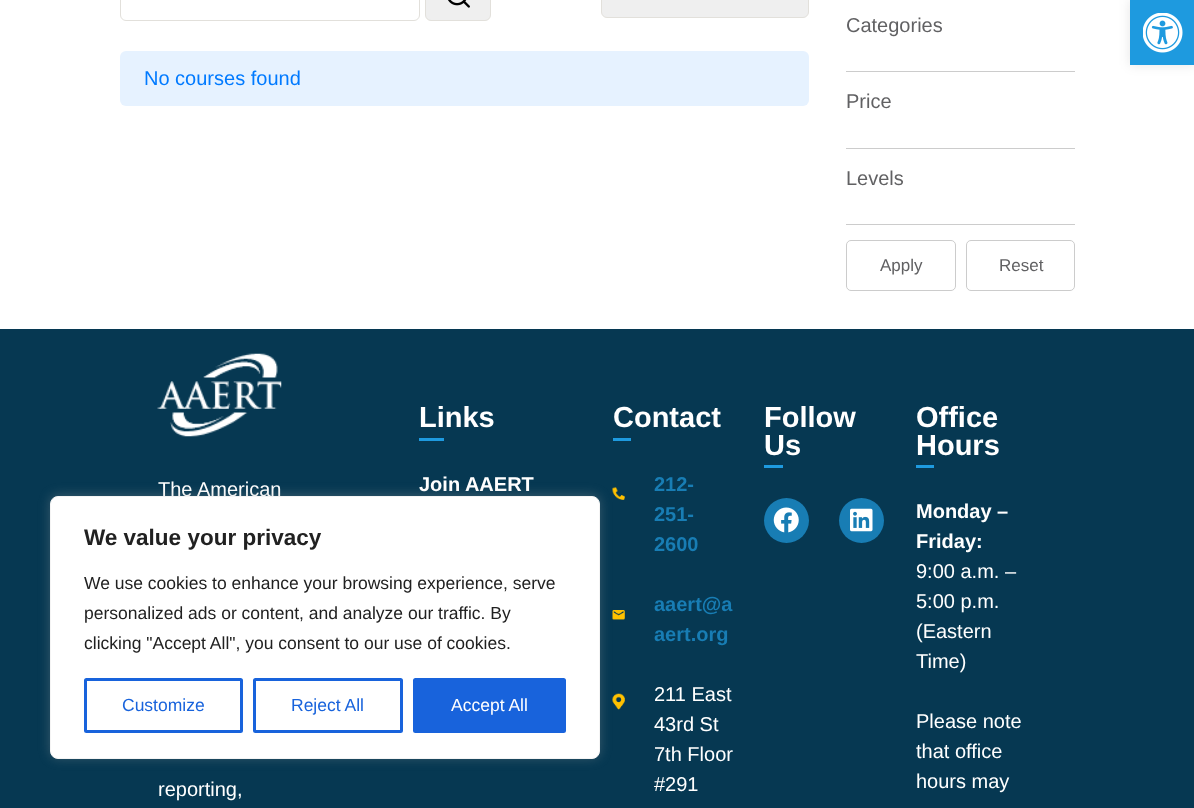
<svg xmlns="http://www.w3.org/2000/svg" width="1194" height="808">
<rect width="100%" height="100%" fill="#fff"/>
<rect x="120.5" y="-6.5" width="299" height="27" rx="5.5" fill="none" stroke="#e2e0db"/>
<rect x="425.5" y="-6.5" width="65" height="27" rx="5.5" fill="#efefef" stroke="#e2e0db"/>
<image x="448" y="0" width="22" height="8" href="media/1.png"/>
<rect x="601.5" y="-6.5" width="207" height="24" rx="5.5" fill="#efefef" stroke="#e2e0db"/>
<rect x="120" y="51" width="689" height="55" rx="6" fill="#e6f2ff"/>
<text x="144" y="85" style="font-family:Liberation Sans;font-size:20px;fill:#007aff">No courses found</text>
<rect x="846" y="71" width="229" height="1" fill="#ccc"/>
<text x="846" y="32" style="font-family:Liberation Sans;font-size:20px;fill:#616163">Categories</text>
<rect x="846" y="148" width="229" height="1" fill="#ccc"/>
<text x="846" y="108" style="font-family:Liberation Sans;font-size:20px;fill:#616163">Price</text>
<rect x="846" y="224" width="229" height="1" fill="#ccc"/>
<text x="846" y="185" style="font-family:Liberation Sans;font-size:20px;fill:#616163">Levels</text>
<rect x="846.5" y="240.5" width="109" height="50" rx="4.5" fill="none" stroke="#ccc"/>
<text x="880" y="271" style="font-family:Liberation Sans;font-size:17px;fill:#616163">Apply</text>
<rect x="966.5" y="240.5" width="108" height="50" rx="4.5" fill="none" stroke="#ccc"/>
<text x="999" y="271" style="font-family:Liberation Sans;font-size:17px;fill:#616163">Reset</text>
<rect y="329" width="1194" height="479" fill="#063852"/>
<text x="419" y="427" style="font-family:Liberation Sans;font-size:29px;font-weight:bold;fill:#fff">Links</text>
<rect x="419" y="438" width="25" height="3" fill="#1e9adf"/>
<text x="419" y="491" style="font-family:Liberation Sans;font-size:20px;font-weight:bold;fill:#fff">Join AAERT</text>
<image x="157" y="353" width="125" height="84" href="media/2.png"/>
<text x="158" y="496" style="font-family:Liberation Sans;font-size:20px;fill:#fff">The American</text>
<text x="158" y="796" style="font-family:Liberation Sans;font-size:20px;fill:#fff">reporting,</text>
<text x="613" y="427" style="font-family:Liberation Sans;font-size:29px;font-weight:bold;fill:#fff">Contact</text>
<rect x="613" y="438" width="18" height="3" fill="#1e9adf"/>
<image x="612" y="487" width="13" height="13" href="media/3.png"/>
<text x="654" y="491" style="font-family:Liberation Sans;font-size:20px;font-weight:bold;fill:#187db4">212-</text>
<text x="654" y="521" style="font-family:Liberation Sans;font-size:20px;font-weight:bold;fill:#187db4">251-</text>
<text x="654" y="551" style="font-family:Liberation Sans;font-size:20px;font-weight:bold;fill:#187db4">2600</text>
<image x="612" y="610" width="13" height="10" href="media/4.png"/>
<text x="654" y="611" style="font-family:Liberation Sans;font-size:20px;font-weight:bold;fill:#187db4">aaert@a</text>
<text x="654" y="641" style="font-family:Liberation Sans;font-size:20px;font-weight:bold;fill:#187db4">aert.org</text>
<image x="612" y="693" width="13" height="17" href="media/5.png"/>
<text x="654" y="701" style="font-family:Liberation Sans;font-size:20px;fill:#fff">211 East</text>
<text x="654" y="731" style="font-family:Liberation Sans;font-size:20px;fill:#fff">43rd St</text>
<text x="654" y="761" style="font-family:Liberation Sans;font-size:20px;fill:#fff">7th Floor</text>
<text x="654" y="791" style="font-family:Liberation Sans;font-size:20px;fill:#fff">#291</text>
<text x="764" y="427" style="font-family:Liberation Sans;font-size:29px;font-weight:bold;fill:#fff">Follow</text>
<text x="764" y="455" style="font-family:Liberation Sans;font-size:29px;font-weight:bold;fill:#fff">Us</text>
<rect x="764" y="465" width="19" height="3" fill="#1e9adf"/>
<circle cx="786.5" cy="520.5" r="22.5" fill="#187db4"/>
<image x="773" y="507" width="26" height="26" href="media/6.png"/>
<circle cx="861.5" cy="520.5" r="22.5" fill="#187db4"/>
<image x="850" y="508" width="23" height="24" href="media/7.png"/>
<text x="916" y="427" style="font-family:Liberation Sans;font-size:29px;font-weight:bold;fill:#fff">Office</text>
<text x="916" y="455" style="font-family:Liberation Sans;font-size:29px;font-weight:bold;fill:#fff">Hours</text>
<rect x="916" y="465" width="18" height="3" fill="#1e9adf"/>
<text x="916" y="518" style="font-family:Liberation Sans;font-size:20px;font-weight:bold;fill:#fff">Monday –</text>
<text x="916" y="548" style="font-family:Liberation Sans;font-size:20px;font-weight:bold;fill:#fff">Friday:</text>
<text x="916" y="578" style="font-family:Liberation Sans;font-size:20px;fill:#fff">9:00 a.m. –</text>
<text x="916" y="608" style="font-family:Liberation Sans;font-size:20px;fill:#fff">5:00 p.m.</text>
<text x="916" y="638" style="font-family:Liberation Sans;font-size:20px;fill:#fff">(Eastern</text>
<text x="916" y="668" style="font-family:Liberation Sans;font-size:20px;fill:#fff">Time)</text>
<text x="916" y="728" style="font-family:Liberation Sans;font-size:20px;fill:#fff">Please note</text>
<text x="916" y="758" style="font-family:Liberation Sans;font-size:20px;fill:#fff">that office</text>
<text x="916" y="788" style="font-family:Liberation Sans;font-size:20px;fill:#fff">hours may</text>
<rect x="1130" width="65" height="65" fill="#0000001a" filter="blur(6px)"/>
<rect x="1130" width="64" height="65" fill="#1e9adf"/>
<image x="1143" y="13" width="40" height="40" href="media/8.png"/>
<rect x="50" y="495" width="550" height="263" rx="8" fill="#acabab4d" filter="blur(6px)"/>
<rect x="50.5" y="496.5" width="549" height="262" rx="7.5" fill="#fff" stroke="#f4f4f4"/>
<text x="84" y="545" style="font-family:Liberation Sans;font-size:22.5px;font-weight:bold;fill:#212121">We value your privacy</text>
<text x="84" y="589" style="font-family:Liberation Sans;font-size:17.5px;fill:#212121">We use cookies to enhance your browsing experience, serve</text>
<text x="84" y="619" style="font-family:Liberation Sans;font-size:17.5px;fill:#212121">personalized ads or content, and analyze our traffic. By</text>
<text x="84" y="649" style="font-family:Liberation Sans;font-size:17.5px;fill:#212121">clicking "Accept All", you consent to our use of cookies.</text>
<rect x="85.5" y="679.5" width="156" height="52" rx="1" fill="none" stroke="#1863dc" stroke-width="3"/>
<text x="122" y="711" style="font-family:Liberation Sans;font-size:17.5px;fill:#1863dc">Customize</text>
<rect x="254.5" y="679.5" width="147" height="52" rx="1" fill="none" stroke="#1863dc" stroke-width="3"/>
<text x="291" y="711" style="font-family:Liberation Sans;font-size:17.5px;fill:#1863dc">Reject All</text>
<rect x="414.5" y="679.5" width="150" height="52" rx="1" fill="#1863dc" stroke="#1863dc" stroke-width="3"/>
<text x="451" y="711" style="font-family:Liberation Sans;font-size:17.5px;fill:#fff">Accept All</text>
</svg>
